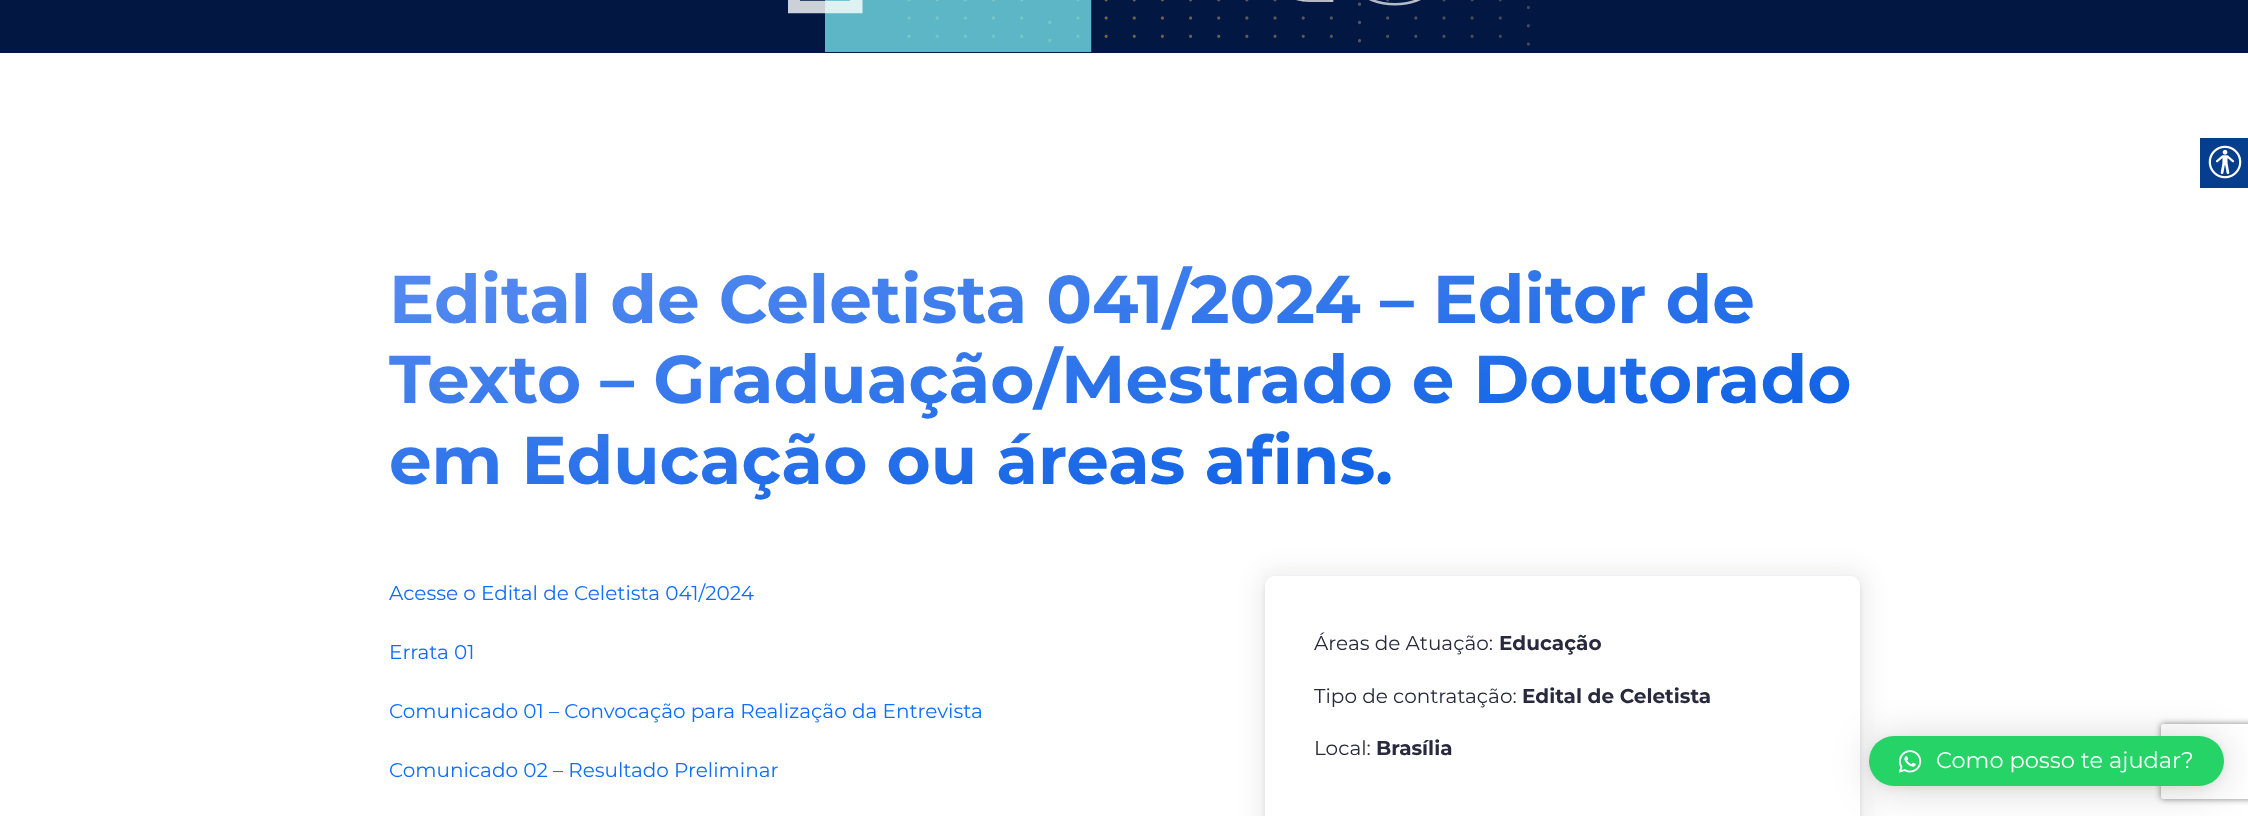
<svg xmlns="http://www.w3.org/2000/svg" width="2248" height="816">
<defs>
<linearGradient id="g1" gradientUnits="userSpaceOnUse" x1="1081" y1="137" x2="1167" y2="624"><stop offset="0.07" stop-color="#5289f0"/><stop offset="0.93" stop-color="#045ce4"/></linearGradient>
<clipPath id="clip1"><path d="M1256 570h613v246h-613zm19 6h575c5.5 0 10 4.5 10 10v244c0 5.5-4.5 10-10 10h-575c-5.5 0-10-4.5-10-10v-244c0-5.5 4.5-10 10-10z" clip-rule="evenodd"/></clipPath>
<clipPath id="clip2"><path d="M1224 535h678v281h-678zm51 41h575c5.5 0 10 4.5 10 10v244c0 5.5-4.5 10-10 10h-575c-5.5 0-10-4.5-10-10v-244c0-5.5 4.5-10 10-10z" clip-rule="evenodd"/></clipPath>
<clipPath id="clip3"><path d="M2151 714h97v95h-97zm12.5 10h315c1.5 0 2.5 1 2.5 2.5v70c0 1.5-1 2.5-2.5 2.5h-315c-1.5 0-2.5-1-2.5-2.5v-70c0-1.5 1-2.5 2.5-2.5z" clip-rule="evenodd"/></clipPath>
</defs>
<rect width="100%" height="100%" fill="#fff"/>
<rect x="2200" y="138" width="48" height="50" fill="#063d8d"/>
<image x="2208" y="145" width="34" height="34" href="media/1.png"/>
<rect width="2248" height="53" fill="#021842"/>
<image x="907" y="0" width="623" height="46" href="media/3.png"/>
<image x="788" y="0" width="633" height="52" href="media/2.png"/>
<text x="389" y="323" style="font-family:Montserrat;font-size:67.5px;font-weight:bold;fill:url(#g1)">Edital de Celetista 041/2024 – Editor de</text>
<text x="389" y="403" style="font-family:Montserrat;font-size:67.5px;font-weight:bold;fill:url(#g1)">Texto – Graduação/Mestrado e Doutorado</text>
<text x="389" y="484" style="font-family:Montserrat;font-size:67.5px;font-weight:bold;fill:url(#g1)">em Educação ou áreas afins.</text>
<text x="389" y="600" style="font-family:Montserrat;font-size:20px;fill:#0d6efd">Acesse o Edital de Celetista 041/2024</text>
<text x="389" y="659" style="font-family:Montserrat;font-size:20px;fill:#0d6efd">Errata 01</text>
<text x="389" y="718" style="font-family:Montserrat;font-size:20px;fill:#0d6efd">Comunicado 01 – Convocação para Realização da Entrevista</text>
<text x="389" y="777" style="font-family:Montserrat;font-size:20px;fill:#0d6efd">Comunicado 02 – Resultado Preliminar</text>
<g clip-path="url(#clip1)">
<rect x="1265" y="579" width="595" height="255" rx="10" fill="#60617029" filter="blur(2.5px)"/>
</g>
<g clip-path="url(#clip2)">
<rect x="1258" y="569" width="610" height="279" rx="18" fill="#28293d14" filter="blur(11px)"/>
</g>
<text x="1314" y="650" style="font-family:Montserrat;font-size:20px;fill:#28293d">Áreas de Atuação:</text>
<text x="1499" y="650" style="font-family:Montserrat;font-size:20px;font-weight:bold;fill:#28293d">Educação</text>
<text x="1314" y="703" style="font-family:Montserrat;font-size:20px;fill:#28293d">Tipo de contratação:</text>
<text x="1522" y="703" style="font-family:Montserrat;font-size:20px;font-weight:bold;fill:#28293d">Edital de Celetista</text>
<text x="1314" y="755" style="font-family:Montserrat;font-size:20px;fill:#28293d">Local:</text>
<text x="1376" y="755" style="font-family:Montserrat;font-size:20px;font-weight:bold;fill:#28293d">Brasília</text>
<rect x="1869" y="739" width="355" height="50" rx="25" fill="#00000029" filter="blur(20px)"/>
<rect x="1869" y="738" width="355" height="50" rx="25" fill="#0000000f" filter="blur(4px)"/>
<g clip-path="url(#clip3)">
<rect x="2161" y="724" width="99" height="75" rx="2.5" fill="#808080" filter="blur(3px)"/>
</g>
<rect x="1869" y="736" width="355" height="50" rx="25" fill="#25d366"/>
<image x="1898" y="750" width="24" height="23" href="media/4.png"/>
<text x="1936" y="768" style="font-family:Montserrat;font-size:22.5px;fill:#fff">Como posso te ajudar?</text>
</svg>
